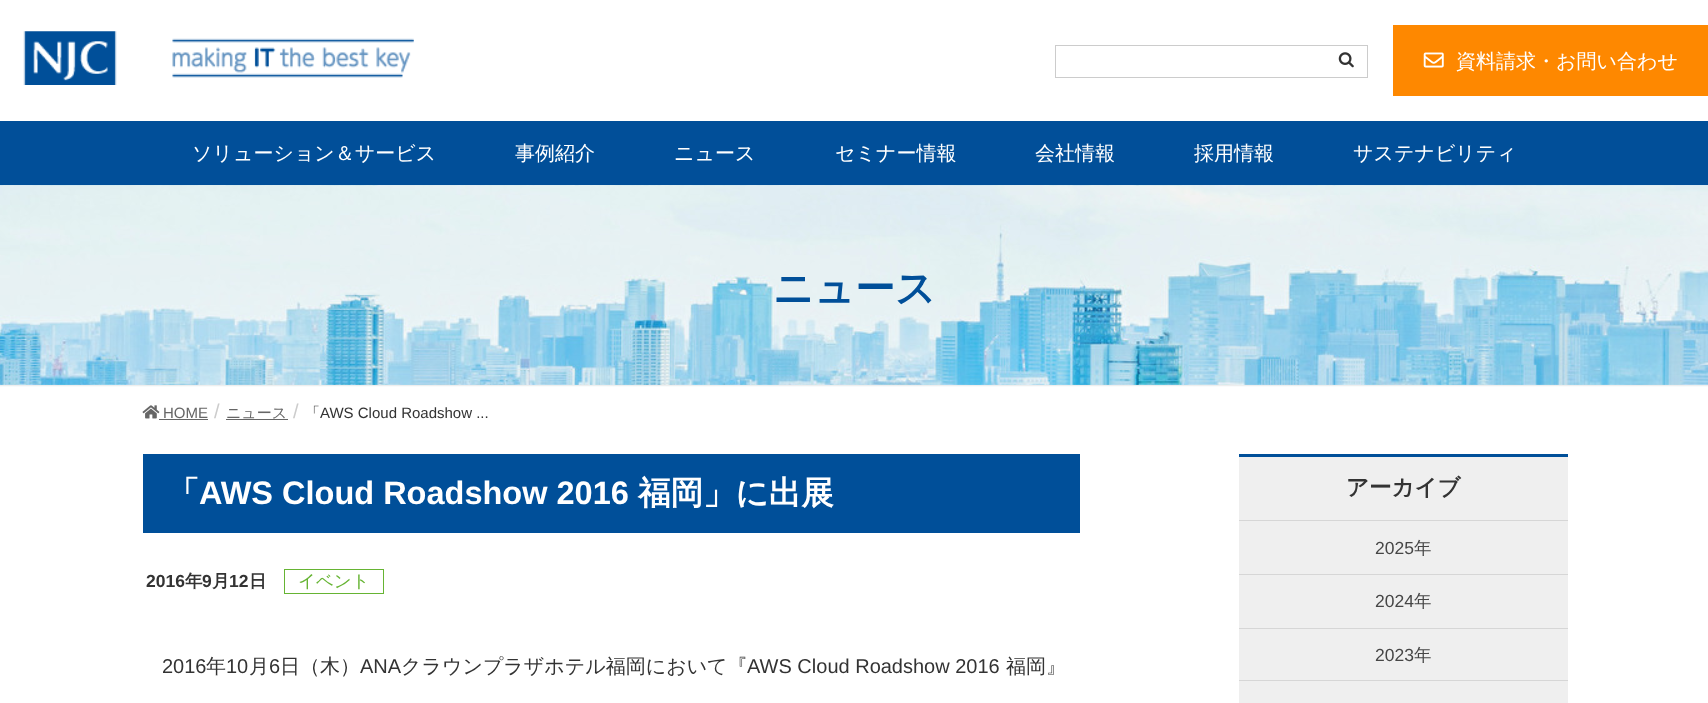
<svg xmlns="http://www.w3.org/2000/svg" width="1708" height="703">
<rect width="100%" height="100%" fill="#fff"/>
<image x="23" y="31" width="391" height="54" href="media/1.png"/>
<rect x="1055.5" y="45.5" width="312" height="32" fill="none" stroke="#ccc"/>
<image x="1338" y="52" width="16" height="16" href="media/2.png"/>
<rect x="1393" y="25" width="315" height="71" fill="#fe8800"/>
<image x="1423" y="52" width="21" height="16" href="media/3.png"/>
<text x="1456" y="68" style="font-family:WenQuanYi Zen Hei;font-size:20px;font-weight:500;fill:#fff">資料請求・お問い合わせ</text>
<rect y="121" width="1708" height="64" fill="#014f99"/>
<text x="192" y="160" style="font-family:WenQuanYi Zen Hei;font-size:20px;font-weight:500;fill:#fff">ソリューション＆サービス</text>
<text x="515" y="160" style="font-family:WenQuanYi Zen Hei;font-size:20px;font-weight:500;fill:#fff">事例紹介</text>
<text x="674" y="160" style="font-family:WenQuanYi Zen Hei;font-size:20px;font-weight:500;fill:#fff">ニュース</text>
<text x="835" y="160" style="font-family:WenQuanYi Zen Hei;font-size:20px;font-weight:500;fill:#fff">セミナー情報</text>
<text x="1035" y="160" style="font-family:WenQuanYi Zen Hei;font-size:20px;font-weight:500;fill:#fff">会社情報</text>
<text x="1194" y="160" style="font-family:WenQuanYi Zen Hei;font-size:20px;font-weight:500;fill:#fff">採用情報</text>
<text x="1353" y="160" style="font-family:WenQuanYi Zen Hei;font-size:20px;font-weight:500;fill:#fff">サステナビリティ</text>
<image x="0" y="185" width="1708" height="202" href="media/4.png"/>
<rect y="385" width="1708" height="1" fill="#eee"/>
<text x="773" y="302" style="font-family:WenQuanYi Zen Hei;font-size:40px;font-weight:bold;fill:#004f99">ニュース</text>
<image x="142" y="405" width="18" height="14" href="media/5.png"/>
<text x="163" y="418" style="font-family:Liberation Sans;font-size:15px;fill:#666">HOME</text>
<rect x="159" y="419" width="49" height="1" fill="#666"/>
<text x="214" y="418" style="font-family:Liberation Sans;font-size:20px;fill:#ccc">/</text>
<text x="226" y="418" style="font-family:WenQuanYi Zen Hei;font-size:15px;font-weight:500;fill:#666">ニュース</text>
<rect x="226" y="419" width="62" height="1" fill="#666"/>
<text x="293" y="418" style="font-family:Liberation Sans;font-size:20px;fill:#ccc">/</text>
<text x="305" y="418" style="font-family:WenQuanYi Zen Hei;font-size:15px;font-weight:500;fill:#333">「</text>
<text x="320" y="418" style="font-family:Liberation Sans;font-size:15px;fill:#333">AWS Cloud Roadshow ...</text>
<rect x="143" y="454" width="937" height="79" fill="#004f99"/>
<text x="167" y="504" style="font-family:WenQuanYi Zen Hei;font-size:32.5px;font-weight:bold;fill:#fff">「</text>
<text x="199" y="504" style="font-family:Liberation Sans;font-size:32.5px;font-weight:bold;fill:#fff">AWS Cloud Roadshow 2016</text>
<text x="638" y="504" style="font-family:WenQuanYi Zen Hei;font-size:32.5px;font-weight:bold;fill:#fff">福岡」に出展</text>
<text x="146" y="587" style="font-family:Liberation Sans;font-size:17.5px;font-weight:bold;fill:#333">2016</text>
<text x="185" y="587" style="font-family:WenQuanYi Zen Hei;font-size:17.5px;font-weight:bold;fill:#333">年</text>
<text x="202" y="587" style="font-family:Liberation Sans;font-size:17.5px;font-weight:bold;fill:#333">9</text>
<text x="212" y="587" style="font-family:WenQuanYi Zen Hei;font-size:17.5px;font-weight:bold;fill:#333">月</text>
<text x="229" y="587" style="font-family:Liberation Sans;font-size:17.5px;font-weight:bold;fill:#333">12</text>
<text x="249" y="587" style="font-family:WenQuanYi Zen Hei;font-size:17.5px;font-weight:bold;fill:#333">日</text>
<rect x="284.5" y="569.5" width="99" height="24" fill="none" stroke="#66b433"/>
<text x="298" y="587" style="font-family:WenQuanYi Zen Hei;font-size:17.5px;font-weight:500;fill:#66b433">イベント</text>
<text x="162" y="673" style="font-family:Liberation Sans;font-size:20px;fill:#333">2016</text>
<text x="206" y="673" style="font-family:WenQuanYi Zen Hei;font-size:20px;font-weight:500;fill:#333">年</text>
<text x="226" y="673" style="font-family:Liberation Sans;font-size:20px;fill:#333">10</text>
<text x="249" y="673" style="font-family:WenQuanYi Zen Hei;font-size:20px;font-weight:500;fill:#333">月</text>
<text x="269" y="673" style="font-family:Liberation Sans;font-size:20px;fill:#333">6</text>
<text x="280" y="673" style="font-family:WenQuanYi Zen Hei;font-size:20px;font-weight:500;fill:#333">日（木）</text>
<text x="360" y="673" style="font-family:Liberation Sans;font-size:20px;fill:#333">ANA</text>
<text x="401" y="673" style="font-family:WenQuanYi Zen Hei;font-size:20px;font-weight:500;fill:#333">クラウンプラザホテル福岡において『</text>
<text x="747" y="673" style="font-family:Liberation Sans;font-size:20px;fill:#333">AWS Cloud Roadshow 2016</text>
<text x="1006" y="673" style="font-family:WenQuanYi Zen Hei;font-size:20px;font-weight:500;fill:#333">福岡』</text>
<rect x="1239" y="457" width="329" height="63" fill="#efefef"/>
<rect x="1239" y="454" width="329" height="3" fill="#004f99"/>
<rect x="1239" y="520" width="329" height="1" fill="#d6d6d6"/>
<text x="1346" y="495" style="font-family:WenQuanYi Zen Hei;font-size:22.5px;font-weight:bold;fill:#333">アーカイブ</text>
<rect x="1239" y="521" width="329" height="53" fill="#efefef"/>
<rect x="1239" y="574" width="329" height="1" fill="#d6d6d6"/>
<text x="1375" y="554" style="font-family:Liberation Sans;font-size:17.5px;fill:#464646">2025</text>
<text x="1414" y="554" style="font-family:WenQuanYi Zen Hei;font-size:17.5px;font-weight:500;fill:#464646">年</text>
<rect x="1239" y="575" width="329" height="53" fill="#efefef"/>
<rect x="1239" y="628" width="329" height="1" fill="#d6d6d6"/>
<text x="1375" y="607" style="font-family:Liberation Sans;font-size:17.5px;fill:#464646">2024</text>
<text x="1414" y="607" style="font-family:WenQuanYi Zen Hei;font-size:17.5px;font-weight:500;fill:#464646">年</text>
<rect x="1239" y="629" width="329" height="51" fill="#efefef"/>
<rect x="1239" y="680" width="329" height="1" fill="#d6d6d6"/>
<text x="1375" y="661" style="font-family:Liberation Sans;font-size:17.5px;fill:#464646">2023</text>
<text x="1414" y="661" style="font-family:WenQuanYi Zen Hei;font-size:17.5px;font-weight:500;fill:#464646">年</text>
<rect x="1239" y="681" width="329" height="22" fill="#efefef"/>
</svg>
